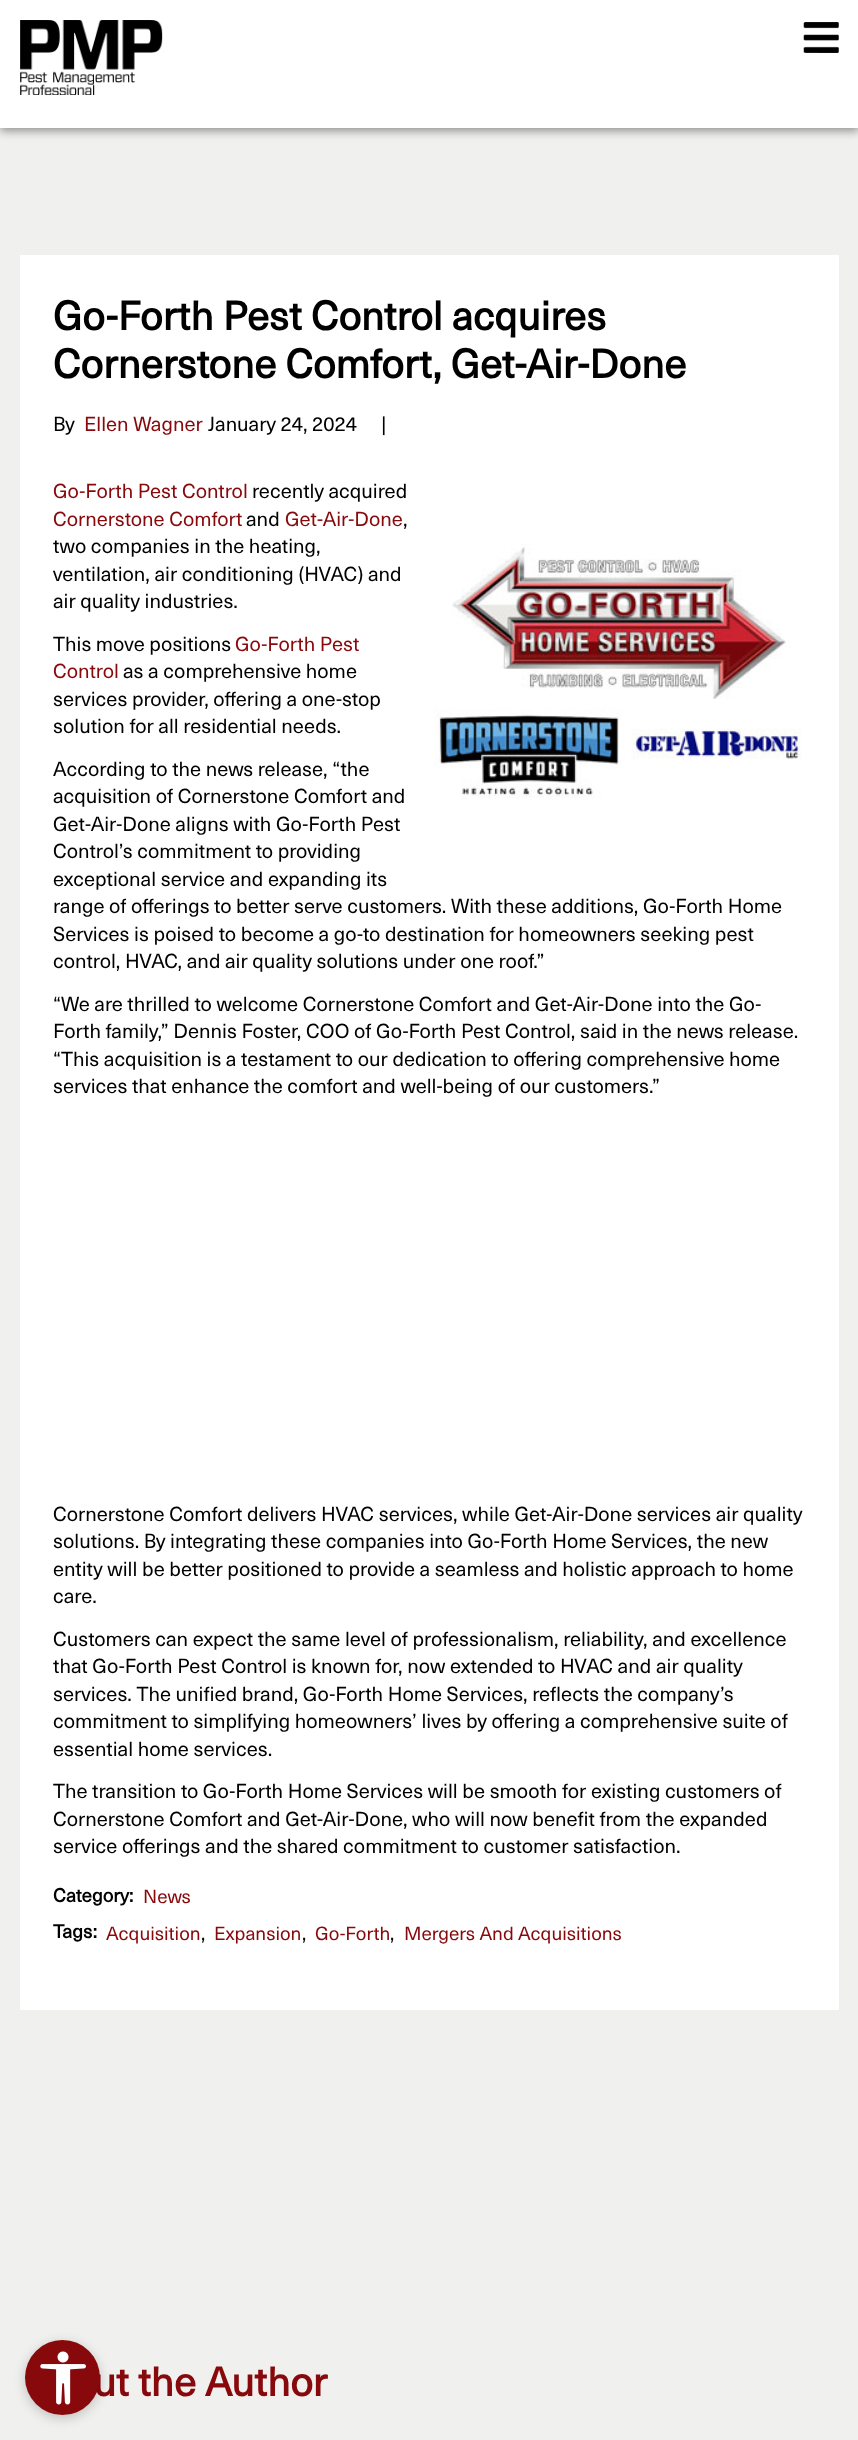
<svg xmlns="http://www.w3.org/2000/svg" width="858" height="2440">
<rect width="100%" height="100%" fill="#f0f0ef"/>
<rect y="4" width="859" height="127" fill="#00000066" filter="blur(5px)"/>
<rect width="858" height="128" fill="#fff"/>
<image x="20" y="20" width="143" height="75" href="media/1.png"/>
<image x="803" y="22" width="36" height="31" href="media/2.png"/>
<rect x="20" y="255" width="819" height="1755" fill="#fff"/>
<text x="53" y="330" style="font-family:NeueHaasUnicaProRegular;font-size:40px;font-weight:bold;fill:#000">Go-Forth Pest Control acquires</text>
<text x="53" y="378" style="font-family:NeueHaasUnicaProRegular;font-size:40px;font-weight:bold;fill:#000">Cornerstone Comfort, Get-Air-Done</text>
<text x="53" y="431" style="font-family:NeueHaasUnicaProRegular;font-size:20px;fill:#000">By</text>
<text x="84" y="431" style="font-family:NeueHaasUnicaProRegular;font-size:20px;fill:#88090c">Ellen Wagner</text>
<text x="208" y="431" style="font-family:NeueHaasUnicaProRegular;font-size:20px;fill:#000">January 24, 2024</text>
<text x="381" y="431" style="font-family:NeueHaasUnicaProRegular;font-size:20px;fill:#000">|</text>
<text x="53" y="498" style="font-family:NeueHaasUnicaProRegular;font-size:20px;fill:#88090c">Go-Forth Pest Control</text>
<text x="252" y="498" style="font-family:NeueHaasUnicaProRegular;font-size:20px;fill:#000">recently acquired</text>
<text x="53" y="526" style="font-family:NeueHaasUnicaProRegular;font-size:20px;fill:#88090c">Cornerstone Comfort</text>
<text x="246" y="526" style="font-family:NeueHaasUnicaProRegular;font-size:20px;fill:#000">and</text>
<text x="285" y="526" style="font-family:NeueHaasUnicaProRegular;font-size:20px;fill:#88090c">Get-Air-Done</text>
<text x="403" y="526" style="font-family:NeueHaasUnicaProRegular;font-size:20px;fill:#000">,</text>
<text x="53" y="553" style="font-family:NeueHaasUnicaProRegular;font-size:20px;fill:#000">two companies in the heating,</text>
<image x="434" y="544" width="368" height="255" href="media/3.png"/>
<text x="53" y="581" style="font-family:NeueHaasUnicaProRegular;font-size:20px;fill:#000">ventilation, air conditioning (HVAC) and</text>
<text x="53" y="608" style="font-family:NeueHaasUnicaProRegular;font-size:20px;fill:#000">air quality industries.</text>
<text x="53" y="651" style="font-family:NeueHaasUnicaProRegular;font-size:20px;fill:#000">This move positions</text>
<text x="235" y="651" style="font-family:NeueHaasUnicaProRegular;font-size:20px;fill:#88090c">Go-Forth Pest</text>
<text x="53" y="678" style="font-family:NeueHaasUnicaProRegular;font-size:20px;fill:#88090c">Control</text>
<text x="123" y="678" style="font-family:NeueHaasUnicaProRegular;font-size:20px;fill:#000">as a comprehensive home</text>
<text x="53" y="706" style="font-family:NeueHaasUnicaProRegular;font-size:20px;fill:#000">services provider, offering a one-stop</text>
<text x="53" y="733" style="font-family:NeueHaasUnicaProRegular;font-size:20px;fill:#000">solution for all residential needs.</text>
<text x="53" y="776" style="font-family:NeueHaasUnicaProRegular;font-size:20px;fill:#000">According to the news release, “the</text>
<text x="53" y="803" style="font-family:NeueHaasUnicaProRegular;font-size:20px;fill:#000">acquisition of Cornerstone Comfort and</text>
<text x="53" y="831" style="font-family:NeueHaasUnicaProRegular;font-size:20px;fill:#000">Get-Air-Done aligns with Go-Forth Pest</text>
<text x="53" y="858" style="font-family:NeueHaasUnicaProRegular;font-size:20px;fill:#000">Control’s commitment to providing</text>
<text x="53" y="886" style="font-family:NeueHaasUnicaProRegular;font-size:20px;fill:#000">exceptional service and expanding its</text>
<text x="53" y="913" style="font-family:NeueHaasUnicaProRegular;font-size:20px;fill:#000">range of offerings to better serve customers. With these additions, Go-Forth Home</text>
<text x="53" y="941" style="font-family:NeueHaasUnicaProRegular;font-size:20px;fill:#000">Services is poised to become a go-to destination for homeowners seeking pest</text>
<text x="53" y="968" style="font-family:NeueHaasUnicaProRegular;font-size:20px;fill:#000">control, HVAC, and air quality solutions under one roof.”</text>
<text x="53" y="1011" style="font-family:NeueHaasUnicaProRegular;font-size:20px;fill:#000">“We are thrilled to welcome Cornerstone Comfort and Get-Air-Done into the Go-</text>
<text x="53" y="1038" style="font-family:NeueHaasUnicaProRegular;font-size:20px;fill:#000">Forth family,” Dennis Foster, COO of Go-Forth Pest Control, said in the news release.</text>
<text x="53" y="1066" style="font-family:NeueHaasUnicaProRegular;font-size:20px;fill:#000">“This acquisition is a testament to our dedication to offering comprehensive home</text>
<text x="53" y="1093" style="font-family:NeueHaasUnicaProRegular;font-size:20px;fill:#000">services that enhance the comfort and well-being of our customers.”</text>
<text x="53" y="1521" style="font-family:NeueHaasUnicaProRegular;font-size:20px;fill:#000">Cornerstone Comfort delivers HVAC services, while Get-Air-Done services air quality</text>
<text x="53" y="1548" style="font-family:NeueHaasUnicaProRegular;font-size:20px;fill:#000">solutions. By integrating these companies into Go-Forth Home Services, the new</text>
<text x="53" y="1576" style="font-family:NeueHaasUnicaProRegular;font-size:20px;fill:#000">entity will be better positioned to provide a seamless and holistic approach to home</text>
<text x="53" y="1603" style="font-family:NeueHaasUnicaProRegular;font-size:20px;fill:#000">care.</text>
<text x="53" y="1646" style="font-family:NeueHaasUnicaProRegular;font-size:20px;fill:#000">Customers can expect the same level of professionalism, reliability, and excellence</text>
<text x="53" y="1673" style="font-family:NeueHaasUnicaProRegular;font-size:20px;fill:#000">that Go-Forth Pest Control is known for, now extended to HVAC and air quality</text>
<text x="53" y="1701" style="font-family:NeueHaasUnicaProRegular;font-size:20px;fill:#000">services. The unified brand, Go-Forth Home Services, reflects the company’s</text>
<text x="53" y="1728" style="font-family:NeueHaasUnicaProRegular;font-size:20px;fill:#000">commitment to simplifying homeowners’ lives by offering a comprehensive suite of</text>
<text x="53" y="1756" style="font-family:NeueHaasUnicaProRegular;font-size:20px;fill:#000">essential home services.</text>
<text x="53" y="1798" style="font-family:NeueHaasUnicaProRegular;font-size:20px;fill:#000">The transition to Go-Forth Home Services will be smooth for existing customers of</text>
<text x="53" y="1826" style="font-family:NeueHaasUnicaProRegular;font-size:20px;fill:#000">Cornerstone Comfort and Get-Air-Done, who will now benefit from the expanded</text>
<text x="53" y="1853" style="font-family:NeueHaasUnicaProRegular;font-size:20px;fill:#000">service offerings and the shared commitment to customer satisfaction.</text>
<text x="53" y="1902" style="font-family:NeueHaasUnicaProRegular;font-size:18.75px;font-weight:bold;fill:#000">Category:</text>
<text x="143" y="1903" style="font-family:NeueHaasUnicaProRegular;font-size:18.75px;fill:#88090c">News</text>
<text x="53" y="1938" style="font-family:NeueHaasUnicaProRegular;font-size:18.75px;font-weight:bold;fill:#000">Tags:</text>
<text x="106" y="1940" style="font-family:NeueHaasUnicaProRegular;font-size:18.75px;fill:#88090c">Acquisition</text>
<text x="201" y="1940" style="font-family:NeueHaasUnicaProRegular;font-size:18.75px;fill:#000">,</text>
<text x="214" y="1940" style="font-family:NeueHaasUnicaProRegular;font-size:18.75px;fill:#88090c">Expansion</text>
<text x="302" y="1940" style="font-family:NeueHaasUnicaProRegular;font-size:18.75px;fill:#000">,</text>
<text x="315" y="1940" style="font-family:NeueHaasUnicaProRegular;font-size:18.75px;fill:#88090c">Go-Forth</text>
<text x="390" y="1940" style="font-family:NeueHaasUnicaProRegular;font-size:18.75px;fill:#000">,</text>
<text x="404" y="1940" style="font-family:NeueHaasUnicaProRegular;font-size:18.75px;fill:#88090c">Mergers And Acquisitions</text>
<text x="93" y="2396" style="font-family:NeueHaasUnicaProRegular;font-size:40px;font-weight:bold;fill:#88090c">ut the Author</text>
<rect x="25" y="2343" width="75" height="75" rx="37.5" fill="#00000033" filter="blur(6px)"/>
<circle cx="62.5" cy="2377.5" r="37.5" fill="#88090c"/>
<image x="40" y="2351" width="46" height="54" href="media/4.png"/>
</svg>
